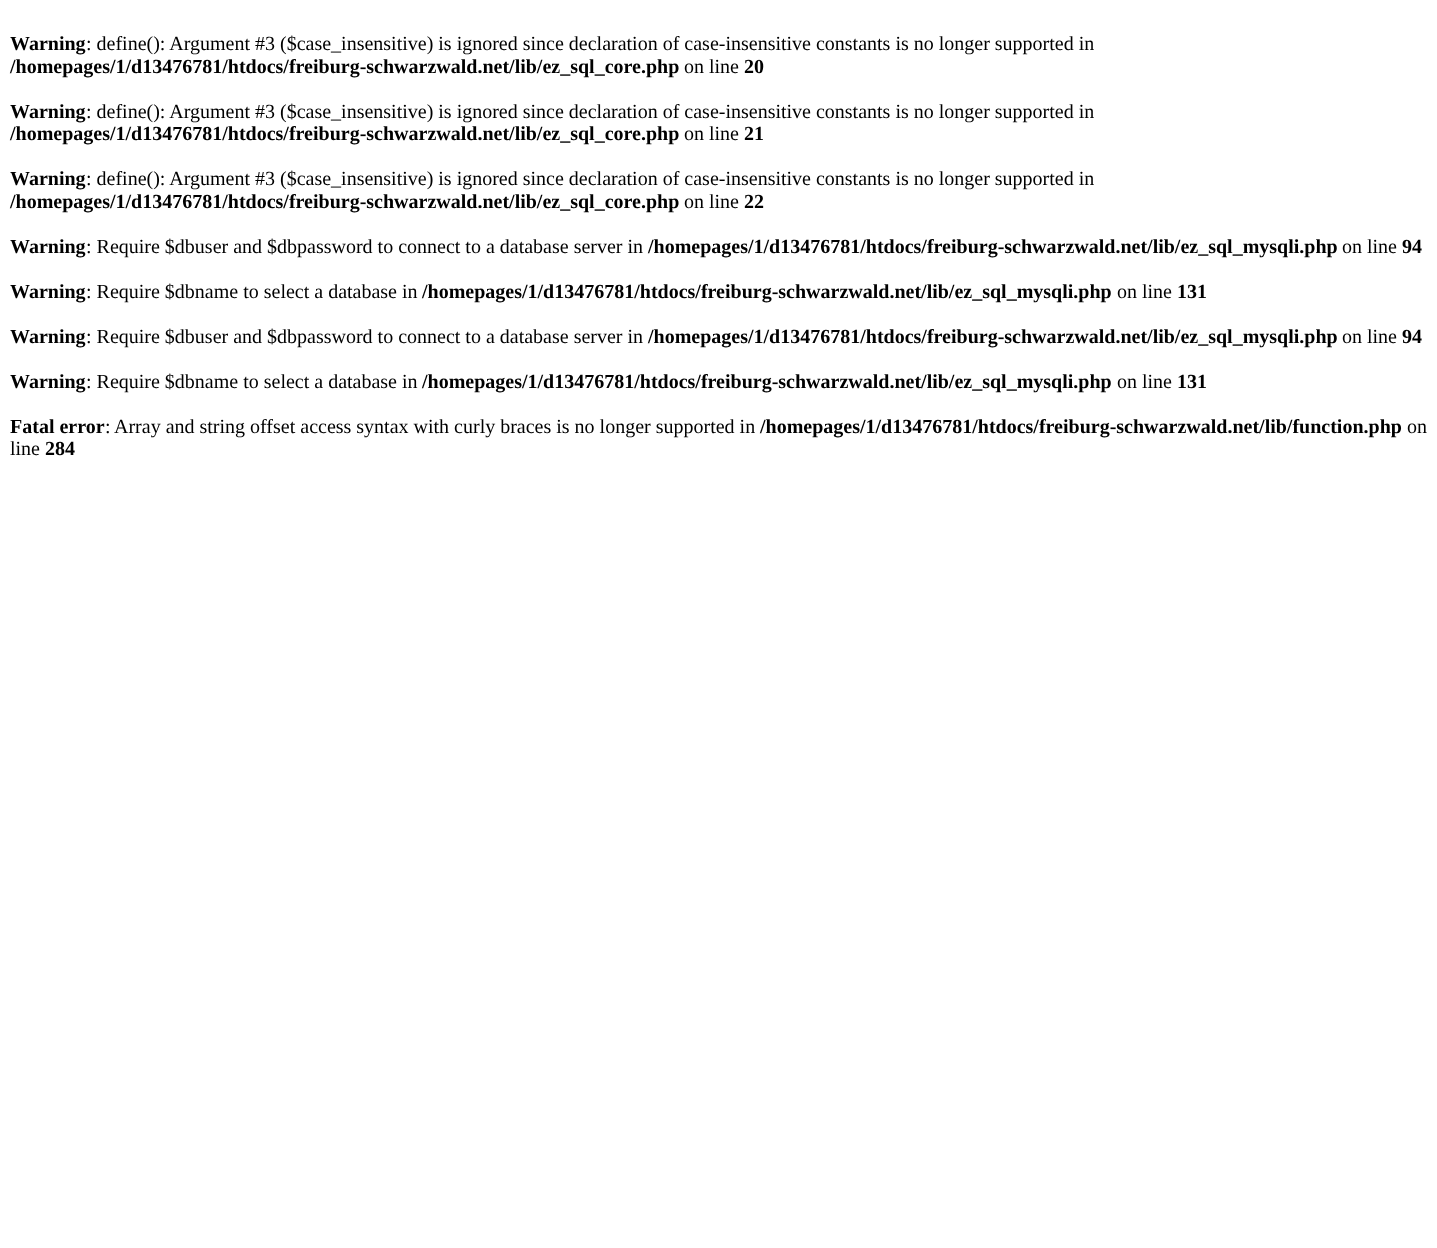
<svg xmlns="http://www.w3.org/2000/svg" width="1437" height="1248">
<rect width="100%" height="100%" fill="#fff"/>
<text x="10" y="50" style="font-family:Liberation Serif;font-size:20px;font-weight:bold;fill:#000">Warning</text>
<text x="86" y="50" style="font-family:Liberation Serif;font-size:20px;fill:#000">: define(): Argument #3 ($case_insensitive) is ignored since declaration of case-insensitive constants is no longer supported in</text>
<text x="10" y="73" style="font-family:Liberation Serif;font-size:20px;font-weight:bold;fill:#000">/homepages/1/d13476781/htdocs/freiburg-schwarzwald.net/lib/ez_sql_core.php</text>
<text x="684" y="73" style="font-family:Liberation Serif;font-size:20px;fill:#000">on line</text>
<text x="744" y="73" style="font-family:Liberation Serif;font-size:20px;font-weight:bold;fill:#000">20</text>
<text x="10" y="118" style="font-family:Liberation Serif;font-size:20px;font-weight:bold;fill:#000">Warning</text>
<text x="86" y="118" style="font-family:Liberation Serif;font-size:20px;fill:#000">: define(): Argument #3 ($case_insensitive) is ignored since declaration of case-insensitive constants is no longer supported in</text>
<text x="10" y="140" style="font-family:Liberation Serif;font-size:20px;font-weight:bold;fill:#000">/homepages/1/d13476781/htdocs/freiburg-schwarzwald.net/lib/ez_sql_core.php</text>
<text x="684" y="140" style="font-family:Liberation Serif;font-size:20px;fill:#000">on line</text>
<text x="744" y="140" style="font-family:Liberation Serif;font-size:20px;font-weight:bold;fill:#000">21</text>
<text x="10" y="185" style="font-family:Liberation Serif;font-size:20px;font-weight:bold;fill:#000">Warning</text>
<text x="86" y="185" style="font-family:Liberation Serif;font-size:20px;fill:#000">: define(): Argument #3 ($case_insensitive) is ignored since declaration of case-insensitive constants is no longer supported in</text>
<text x="10" y="208" style="font-family:Liberation Serif;font-size:20px;font-weight:bold;fill:#000">/homepages/1/d13476781/htdocs/freiburg-schwarzwald.net/lib/ez_sql_core.php</text>
<text x="684" y="208" style="font-family:Liberation Serif;font-size:20px;fill:#000">on line</text>
<text x="744" y="208" style="font-family:Liberation Serif;font-size:20px;font-weight:bold;fill:#000">22</text>
<text x="10" y="253" style="font-family:Liberation Serif;font-size:20px;font-weight:bold;fill:#000">Warning</text>
<text x="86" y="253" style="font-family:Liberation Serif;font-size:20px;fill:#000">: Require $dbuser and $dbpassword to connect to a database server in</text>
<text x="648" y="253" style="font-family:Liberation Serif;font-size:20px;font-weight:bold;fill:#000">/homepages/1/d13476781/htdocs/freiburg-schwarzwald.net/lib/ez_sql_mysqli.php</text>
<text x="1342" y="253" style="font-family:Liberation Serif;font-size:20px;fill:#000">on line</text>
<text x="1402" y="253" style="font-family:Liberation Serif;font-size:20px;font-weight:bold;fill:#000">94</text>
<text x="10" y="298" style="font-family:Liberation Serif;font-size:20px;font-weight:bold;fill:#000">Warning</text>
<text x="86" y="298" style="font-family:Liberation Serif;font-size:20px;fill:#000">: Require $dbname to select a database in</text>
<text x="422" y="298" style="font-family:Liberation Serif;font-size:20px;font-weight:bold;fill:#000">/homepages/1/d13476781/htdocs/freiburg-schwarzwald.net/lib/ez_sql_mysqli.php</text>
<text x="1117" y="298" style="font-family:Liberation Serif;font-size:20px;fill:#000">on line</text>
<text x="1177" y="298" style="font-family:Liberation Serif;font-size:20px;font-weight:bold;fill:#000">131</text>
<text x="10" y="343" style="font-family:Liberation Serif;font-size:20px;font-weight:bold;fill:#000">Warning</text>
<text x="86" y="343" style="font-family:Liberation Serif;font-size:20px;fill:#000">: Require $dbuser and $dbpassword to connect to a database server in</text>
<text x="648" y="343" style="font-family:Liberation Serif;font-size:20px;font-weight:bold;fill:#000">/homepages/1/d13476781/htdocs/freiburg-schwarzwald.net/lib/ez_sql_mysqli.php</text>
<text x="1342" y="343" style="font-family:Liberation Serif;font-size:20px;fill:#000">on line</text>
<text x="1402" y="343" style="font-family:Liberation Serif;font-size:20px;font-weight:bold;fill:#000">94</text>
<text x="10" y="388" style="font-family:Liberation Serif;font-size:20px;font-weight:bold;fill:#000">Warning</text>
<text x="86" y="388" style="font-family:Liberation Serif;font-size:20px;fill:#000">: Require $dbname to select a database in</text>
<text x="422" y="388" style="font-family:Liberation Serif;font-size:20px;font-weight:bold;fill:#000">/homepages/1/d13476781/htdocs/freiburg-schwarzwald.net/lib/ez_sql_mysqli.php</text>
<text x="1117" y="388" style="font-family:Liberation Serif;font-size:20px;fill:#000">on line</text>
<text x="1177" y="388" style="font-family:Liberation Serif;font-size:20px;font-weight:bold;fill:#000">131</text>
<text x="10" y="433" style="font-family:Liberation Serif;font-size:20px;font-weight:bold;fill:#000">Fatal error</text>
<text x="105" y="433" style="font-family:Liberation Serif;font-size:20px;fill:#000">:</text>
<text x="114" y="433" style="font-family:Liberation Serif;font-size:20px;fill:#000">Array and string offset access syntax with curly braces is no longer supported in</text>
<text x="760" y="433" style="font-family:Liberation Serif;font-size:20px;font-weight:bold;fill:#000">/homepages/1/d13476781/htdocs/freiburg-schwarzwald.net/lib/function.php</text>
<text x="1407" y="433" style="font-family:Liberation Serif;font-size:20px;fill:#000">on</text>
<text x="10" y="455" style="font-family:Liberation Serif;font-size:20px;fill:#000">line</text>
<text x="45" y="455" style="font-family:Liberation Serif;font-size:20px;font-weight:bold;fill:#000">284</text>
</svg>
